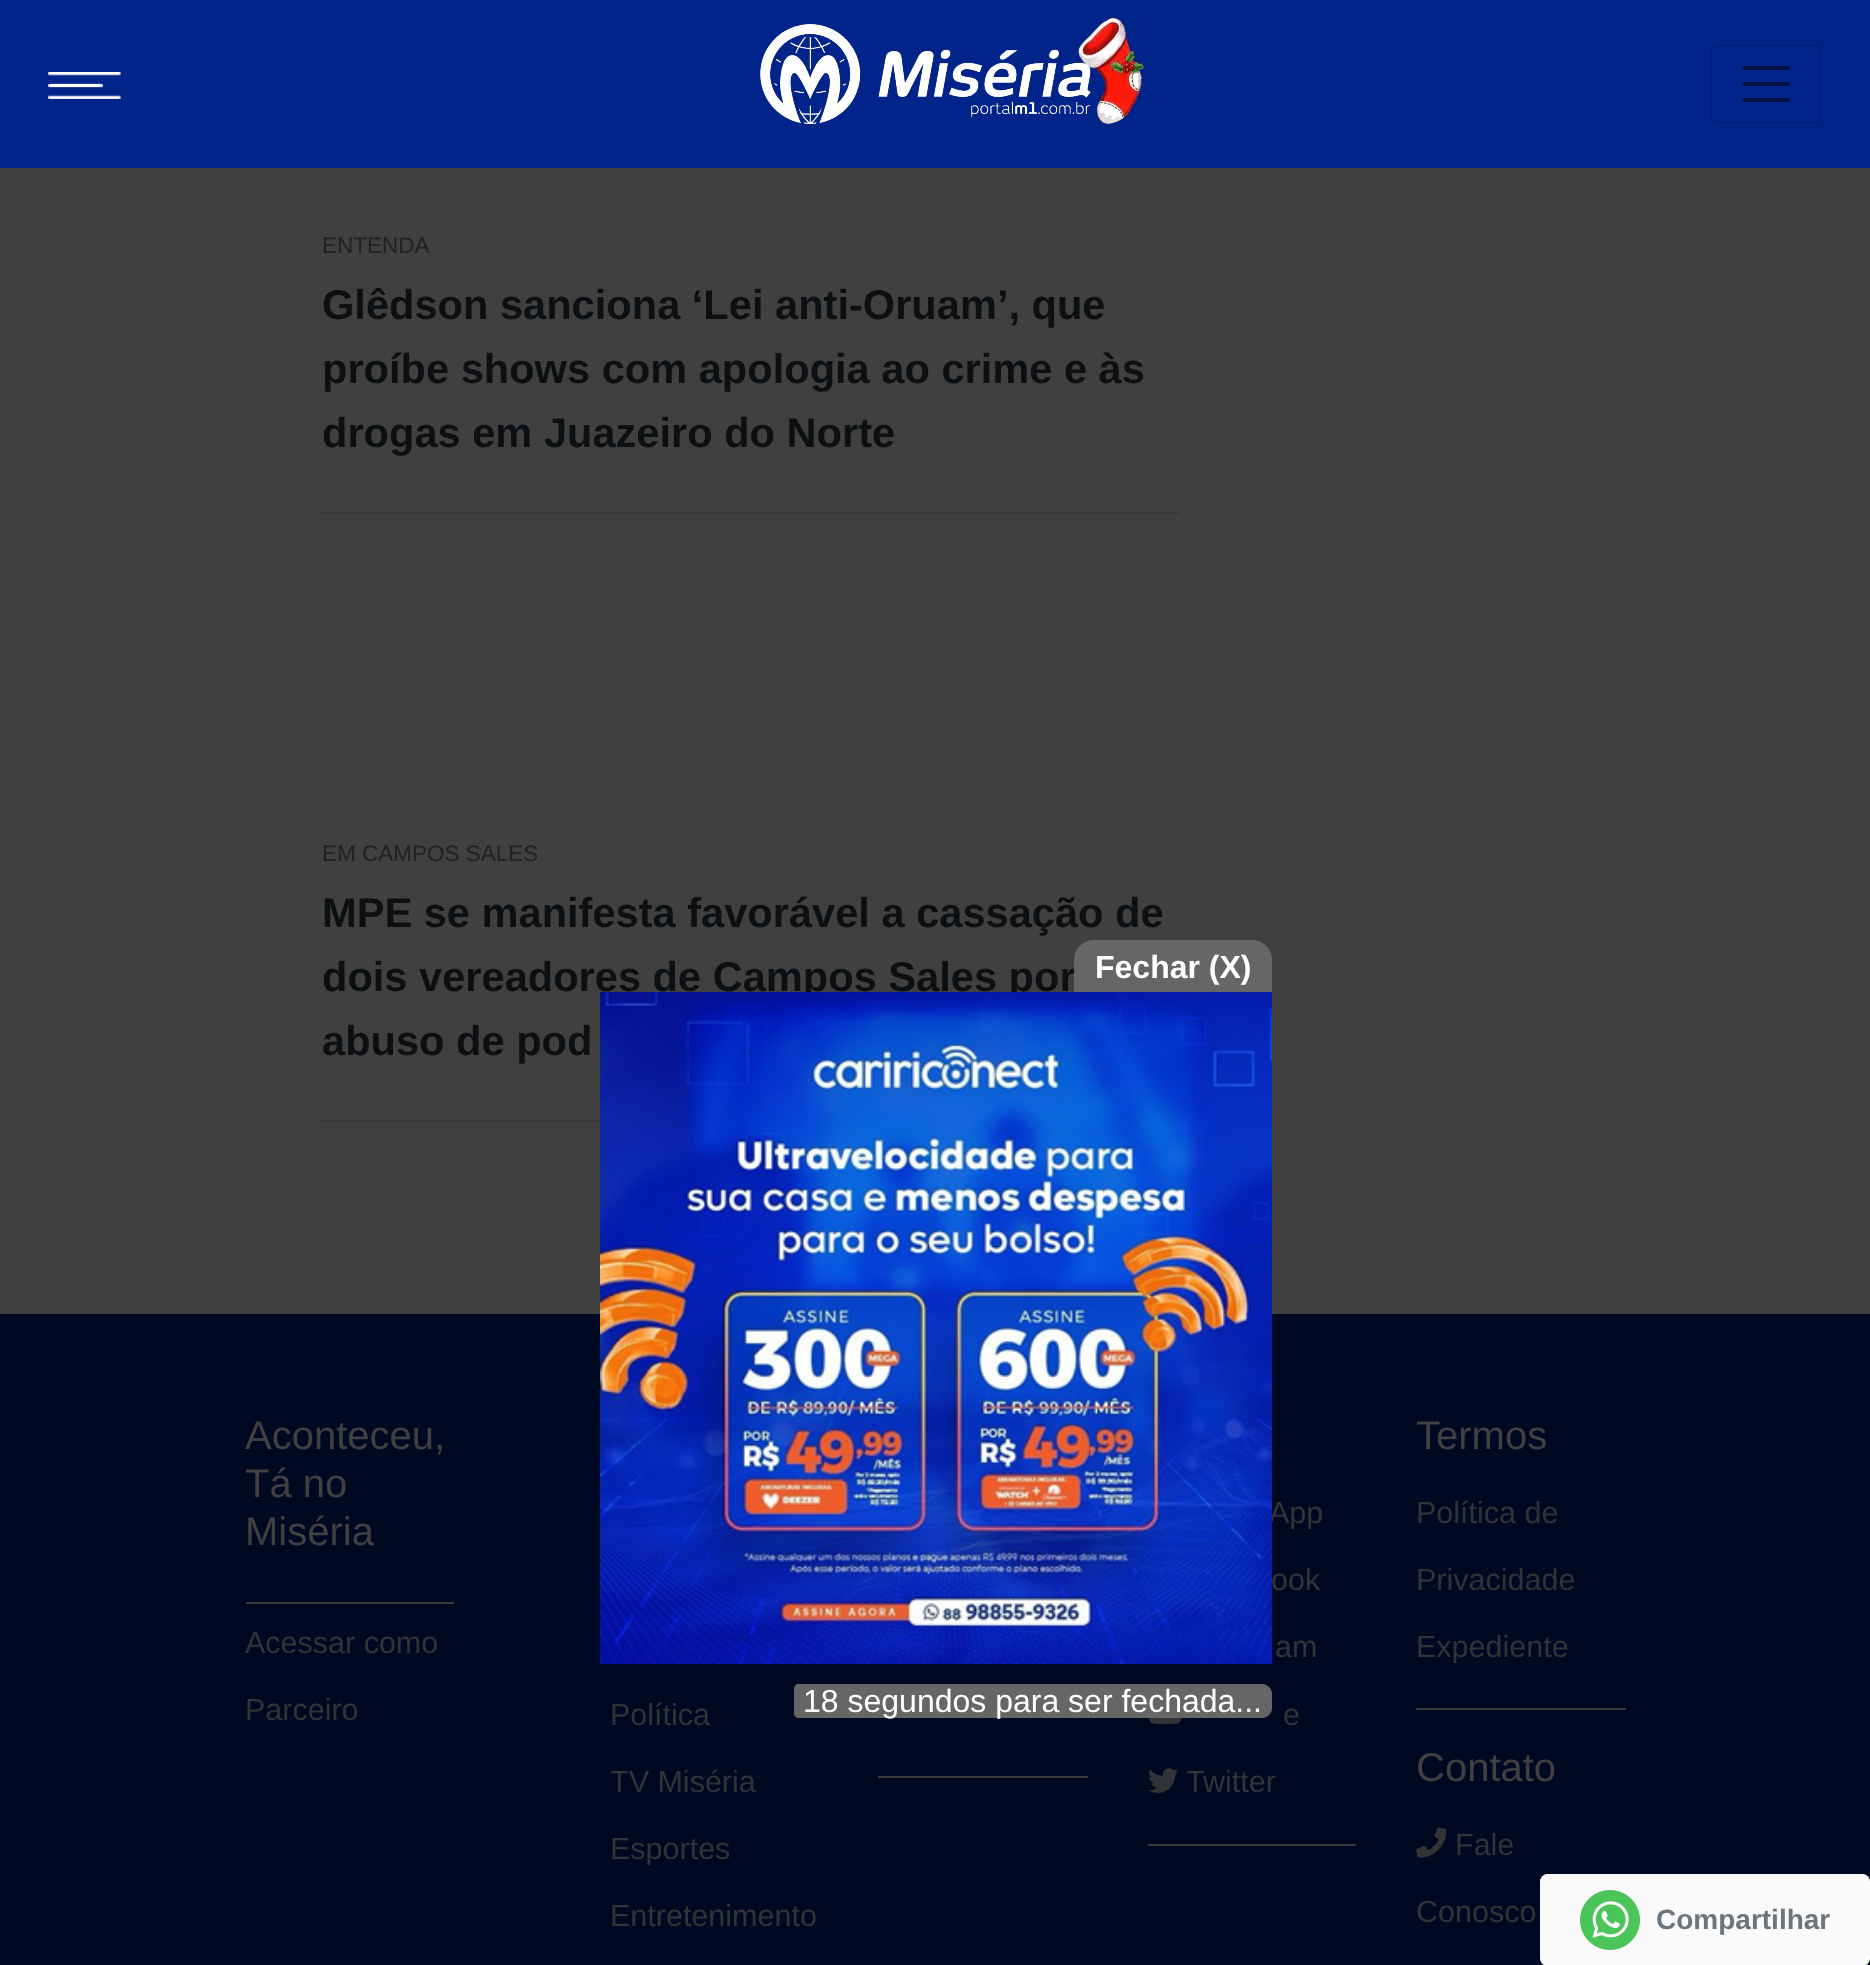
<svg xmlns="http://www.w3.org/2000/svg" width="1870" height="1965">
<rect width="100%" height="100%" fill="#404040"/>
<rect width="1870" height="168" fill="#002489"/>
<image x="48" y="72" width="73" height="27" href="media/1.png"/>
<image x="760" y="17" width="385" height="108" href="media/2.png"/>
<rect x="1711" y="45" width="110" height="78" rx="7" fill="none" stroke="#00207b" stroke-width="2"/>
<path d="M1744 68h44m-44 16h44m-44 16h44" fill="none" stroke="#001245" stroke-width="4" stroke-linecap="round"/>
<text x="322" y="253" style="font-family:Liberation Sans;font-size:22.5px;fill:#222">ENTENDA</text>
<text x="322" y="319" style="font-family:Liberation Sans;font-size:41.6px;font-weight:bold;fill:#0d1013">Glêdson sanciona ‘Lei anti-Oruam’, que</text>
<text x="322" y="383" style="font-family:Liberation Sans;font-size:41.6px;font-weight:bold;fill:#0d1013">proíbe shows com apologia ao crime e às</text>
<text x="322" y="447" style="font-family:Liberation Sans;font-size:41.6px;font-weight:bold;fill:#0d1013">drogas em Juazeiro do Norte</text>
<rect x="322" y="512" width="858" height="2" fill="#38393a"/>
<text x="322" y="861" style="font-family:Liberation Sans;font-size:22.5px;fill:#222">EM CAMPOS SALES</text>
<text x="322" y="927" style="font-family:Liberation Sans;font-size:41.6px;font-weight:bold;fill:#0d1013">MPE se manifesta favorável a cassação de</text>
<text x="322" y="991" style="font-family:Liberation Sans;font-size:41.6px;font-weight:bold;fill:#0d1013">dois vereadores de Campos Sales por</text>
<text x="322" y="1055" style="font-family:Liberation Sans;font-size:41.6px;font-weight:bold;fill:#0d1013">abuso de pod</text>
<rect x="322" y="1120" width="278" height="2" fill="#38393a"/>
<rect y="1314" width="1870" height="651" fill="#000922"/>
<rect x="1540" y="1874" width="330" height="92" rx="8" fill="#d9dade"/>
<rect x="1540" y="1874" width="330" height="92" rx="8" fill="#ffffffd9"/>
<image x="1580" y="1890" width="60" height="60" href="media/3.png"/>
<text x="1656" y="1929" style="font-family:Liberation Sans;font-size:28px;font-weight:bold;fill:#6c757d">Compartilhar</text>
<path d="M1094 940h158c11 0 20 9 20 20v34h-198v-34c0-11 9-20 20-20z" fill="#666"/>
<text x="1095" y="978" style="font-family:Liberation Sans;font-size:32px;font-weight:bold;fill:#fff">Fechar (X)</text>
<text x="1269" y="1523" style="font-family:Liberation Sans;font-size:30.5px;fill:#313437">App</text>
<image x="600" y="992" width="672" height="672" href="media/4.png"/>
<rect x="804" y="1684" width="34" height="34" fill="#666"/>
<path d="M838 1684h424c5.5 0 10 4.5 10 10v14c0 5.5-4.5 10-10 10h-424z" fill="#666"/>
<image x="1149" y="1718" width="32" height="6" href="media/5.png"/>
<text x="803" y="1712" style="font-family:Liberation Sans;font-size:32px;fill:#fff">18 segundos para ser fechada...</text>
<path d="M799 1684h5v34h-5c-3 0-5-2-5-5v-24c0-3 2-5 5-5z" fill="#666"/>
<text x="245" y="1449" style="font-family:Liberation Sans;font-size:40px;fill:#404040">Aconteceu,</text>
<text x="245" y="1497" style="font-family:Liberation Sans;font-size:40px;fill:#404040">Tá no</text>
<text x="245" y="1545" style="font-family:Liberation Sans;font-size:40px;fill:#404040">Miséria</text>
<rect x="246" y="1602" width="208" height="2" fill="#38393a"/>
<text x="245" y="1653" style="font-family:Liberation Sans;font-size:30.5px;fill:#313437">Acessar como</text>
<text x="245" y="1720" style="font-family:Liberation Sans;font-size:30.5px;fill:#313437">Parceiro</text>
<text x="610" y="1725" style="font-family:Liberation Sans;font-size:30.5px;fill:#313437">Política</text>
<text x="610" y="1792" style="font-family:Liberation Sans;font-size:30.5px;fill:#313437">TV Miséria</text>
<text x="610" y="1859" style="font-family:Liberation Sans;font-size:30.5px;fill:#313437">Esportes</text>
<text x="610" y="1926" style="font-family:Liberation Sans;font-size:30.5px;fill:#313437">Entretenimento</text>
<rect x="878" y="1776" width="210" height="2" fill="#38393a"/>
<text x="1271" y="1590" style="font-family:Liberation Sans;font-size:30.5px;fill:#313437">ook</text>
<text x="1275" y="1657" style="font-family:Liberation Sans;font-size:30.5px;fill:#313437">am</text>
<text x="1283" y="1725" style="font-family:Liberation Sans;font-size:30.5px;fill:#313437">e</text>
<image x="1148" y="1768" width="31" height="25" href="media/6.png"/>
<text x="1186" y="1792" style="font-family:Liberation Sans;font-size:30.5px;fill:#313437">Twitter</text>
<rect x="1148" y="1844" width="208" height="2" fill="#38393a"/>
<text x="1416" y="1449" style="font-family:Liberation Sans;font-size:40px;fill:#404040">Termos</text>
<text x="1416" y="1523" style="font-family:Liberation Sans;font-size:30.5px;fill:#313437">Política de</text>
<text x="1416" y="1590" style="font-family:Liberation Sans;font-size:30.5px;fill:#313437">Privacidade</text>
<text x="1416" y="1657" style="font-family:Liberation Sans;font-size:30.5px;fill:#313437">Expediente</text>
<rect x="1416" y="1708" width="210" height="2" fill="#38393a"/>
<text x="1416" y="1781" style="font-family:Liberation Sans;font-size:40px;fill:#404040">Contato</text>
<image x="1416" y="1827" width="31" height="31" href="media/7.png"/>
<text x="1455" y="1855" style="font-family:Liberation Sans;font-size:30.5px;fill:#313437">Fale</text>
<text x="1416" y="1922" style="font-family:Liberation Sans;font-size:30.5px;fill:#313437">Conosco</text>
</svg>
